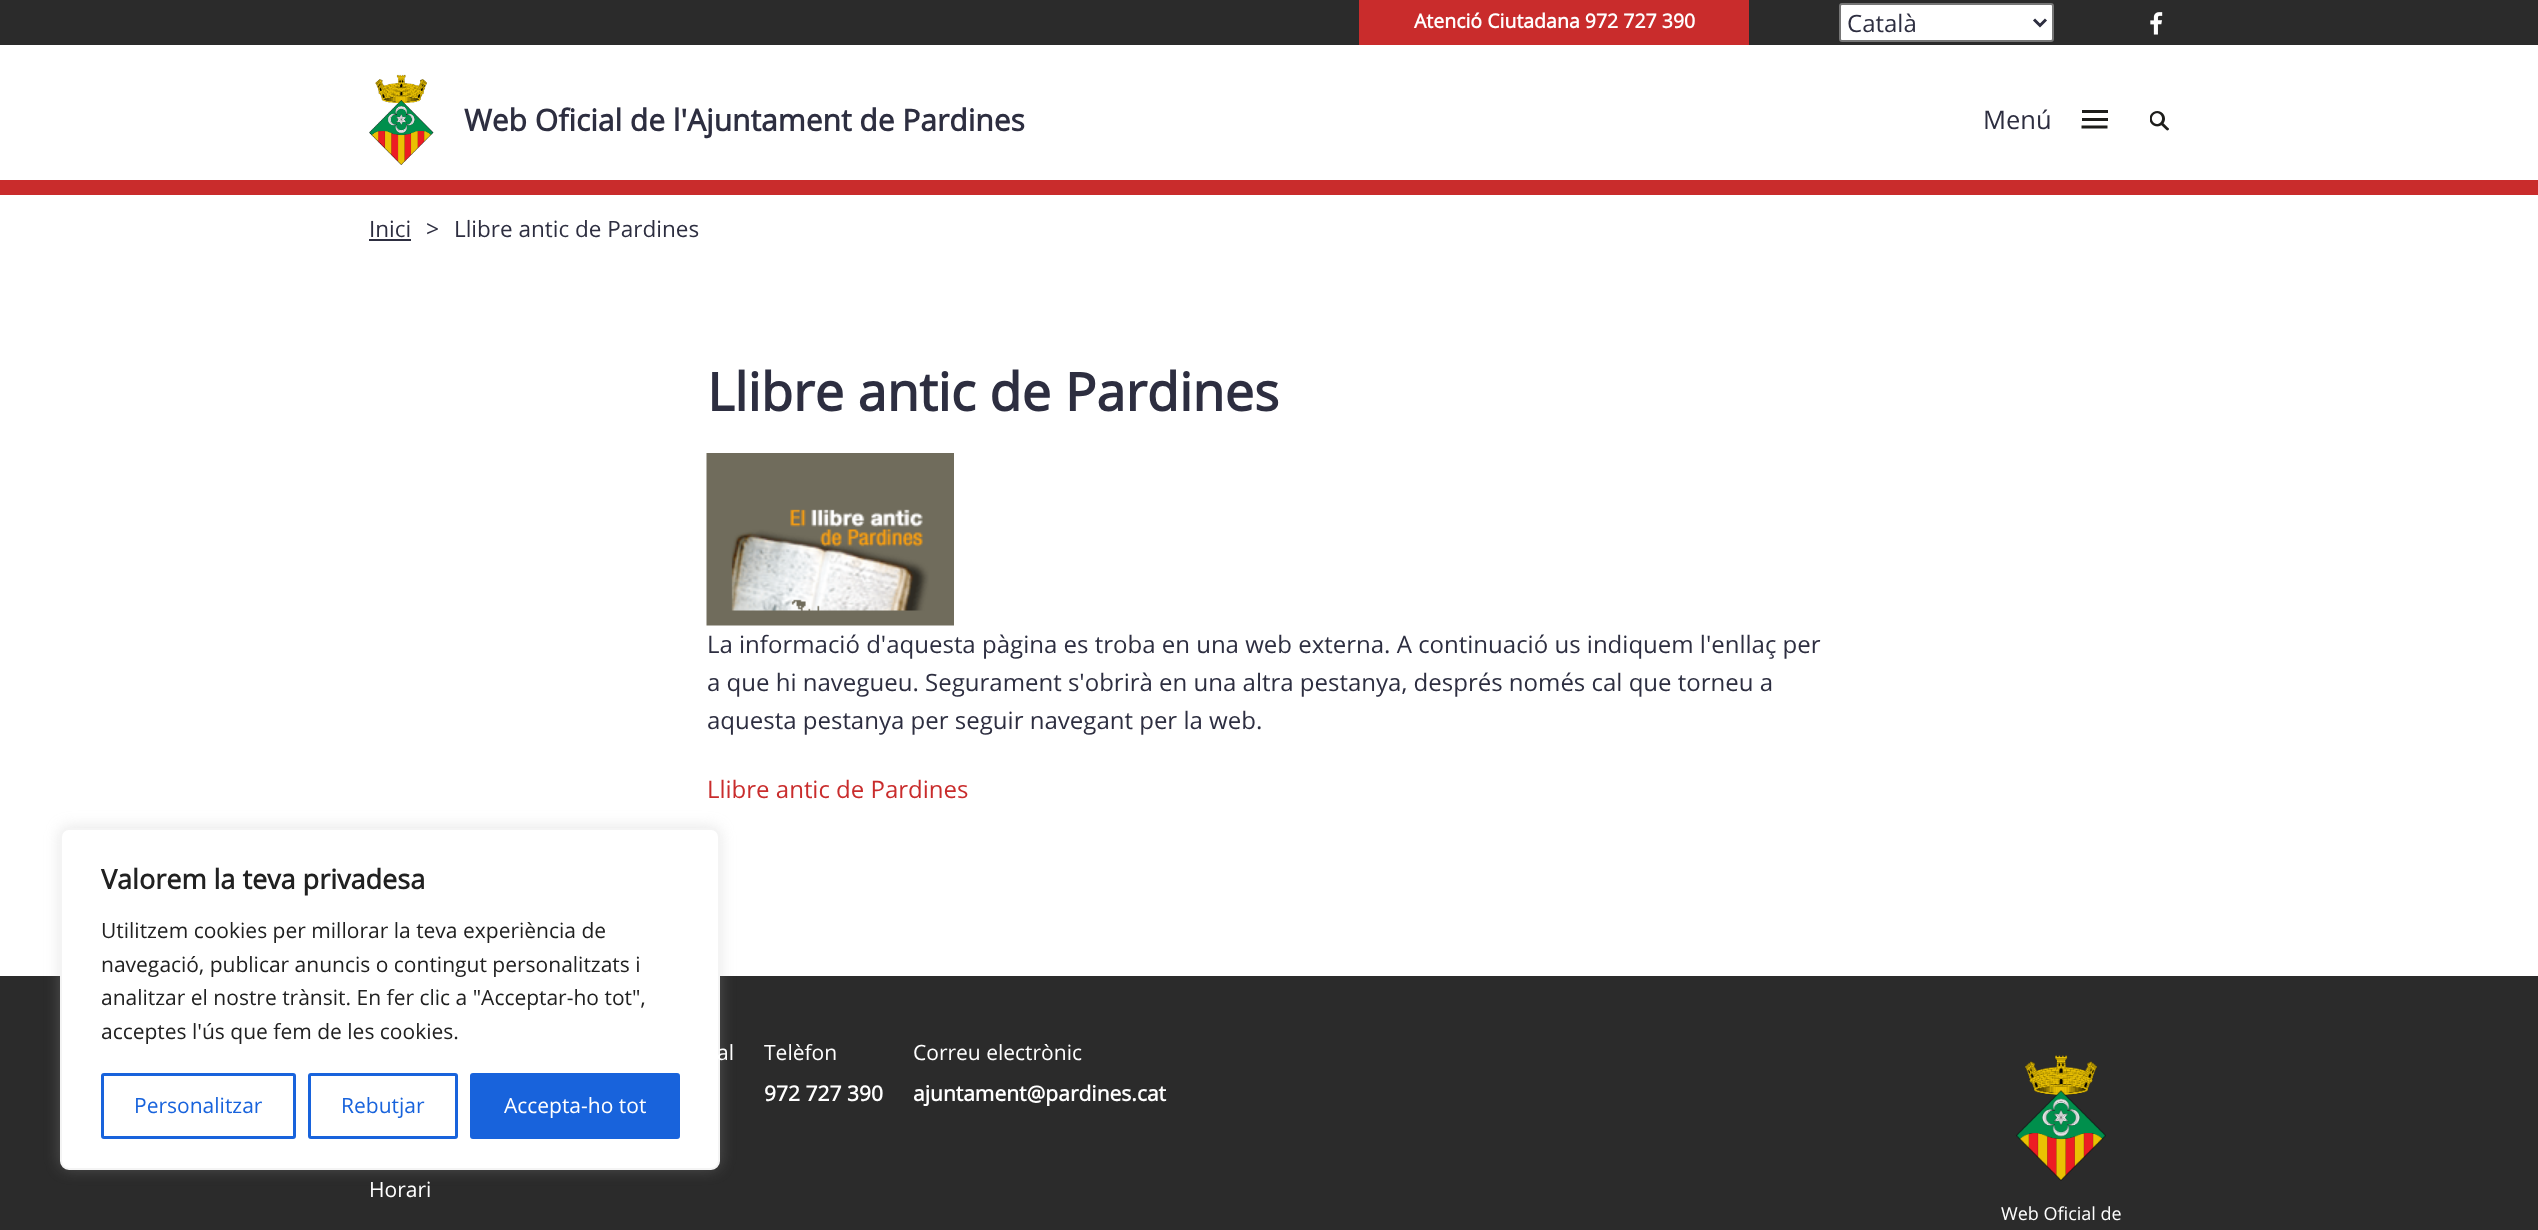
<svg xmlns="http://www.w3.org/2000/svg" width="2538" height="1230">
<rect width="100%" height="100%" fill="#fff"/>
<rect y="180" width="2538" height="15" fill="#c92c2c"/>
<rect width="2538" height="45" fill="#2b2b2b"/>
<rect x="1359" width="390" height="45" fill="#c92c2c"/>
<text x="1414" y="28" style="font-family:Open Sans;font-size:19.5px;font-weight:bold;fill:#fff">Atenció Ciutadana 972 727 390</text>
<rect x="1840" y="4" width="213" height="37" rx="2" fill="#fff" stroke="#767676" stroke-width="2"/>
<path d="M2034 19.5l6 6l6-6" fill="none" stroke="#2d2e40" stroke-width="3"/>
<text x="1847" y="32" style="font-family:Open Sans;font-size:24px;fill:#2d2e40">Català</text>
<image x="2150" y="12" width="13" height="23" href="media/1.png"/>
<image x="369" y="74" width="65" height="91" href="media/2.png"/>
<text x="464" y="131" style="font-family:Open Sans;font-size:30px;font-weight:bold;fill:#2d2e40">Web Oficial de l'Ajuntament de Pardines</text>
<text x="1983" y="129" style="font-family:Open Sans;font-size:25.5px;fill:#2d2e40">Menú</text>
<rect x="2082" y="110" width="26" height="3" fill="#1d1d1b"/>
<rect x="2082" y="118" width="26" height="3" fill="#1d1d1b"/>
<path d="M2081.5 127h26" fill="none" stroke="#1d1d1b" stroke-width="3"/>
<image x="2150" y="111" width="19" height="20" href="media/3.png"/>
<text x="369" y="237" style="font-family:Open Sans;font-size:22.5px;fill:#2d2e40">Inici</text>
<rect x="369" y="239" width="42" height="2" fill="#2d2e40"/>
<text x="426" y="237" style="font-family:Open Sans;font-size:23px;fill:#2d2e40">&gt;</text>
<text x="454" y="237" style="font-family:Open Sans;font-size:22.5px;fill:#2d2e40">Llibre antic de Pardines</text>
<text x="707" y="411" style="font-family:Open Sans;font-size:52.5px;font-weight:bold;fill:#2d2e40">Llibre antic de Pardines</text>
<image x="706" y="453" width="248" height="173" href="media/4.png"/>
<text x="707" y="653" style="font-family:Open Sans;font-size:24px;fill:#2d2e40">La informació d'aquesta pàgina es troba en una web externa. A continuació us indiquem l'enllaç per</text>
<text x="707" y="691" style="font-family:Open Sans;font-size:24px;fill:#2d2e40">a que hi navegueu. Segurament s'obrirà en una altra pestanya, després només cal que torneu a</text>
<text x="707" y="729" style="font-family:Open Sans;font-size:24px;fill:#2d2e40">aquesta pestanya per seguir navegant per la web.</text>
<text x="707" y="798" style="font-family:Open Sans;font-size:24px;fill:#c92c2c">Llibre antic de Pardines</text>
<rect y="976" width="2538" height="254" fill="#2b2b2b"/>
<rect x="60" y="827" width="660" height="342" rx="9" fill="#acabab4d" filter="blur(7.5px)"/>
<rect x="61" y="829" width="658" height="340" rx="8" fill="#fff" stroke="#f4f4f4" stroke-width="2"/>
<text x="101" y="889" style="font-family:Open Sans;font-size:27px;font-weight:bold;fill:#212121">Valorem la teva privadesa</text>
<text x="101" y="938" style="font-family:Open Sans;font-size:21px;fill:#212121">Utilitzem cookies per millorar la teva experiència de</text>
<text x="101" y="972" style="font-family:Open Sans;font-size:21px;fill:#212121">navegació, publicar anuncis o contingut personalitzats i</text>
<text x="101" y="1005" style="font-family:Open Sans;font-size:21px;fill:#212121">analitzar el nostre trànsit. En fer clic a "Acceptar-ho tot",</text>
<text x="101" y="1039" style="font-family:Open Sans;font-size:21px;fill:#212121">acceptes l'ús que fem de les cookies.</text>
<rect x="102.5" y="1074.5" width="192" height="63" rx="1.5" fill="none" stroke="#1863dc" stroke-width="3"/>
<text x="134" y="1113" style="font-family:Open Sans;font-size:21px;fill:#1863dc">Personalitzar</text>
<rect x="309.5" y="1074.5" width="147" height="63" rx="1.5" fill="none" stroke="#1863dc" stroke-width="3"/>
<text x="341" y="1113" style="font-family:Open Sans;font-size:21px;fill:#1863dc">Rebutjar</text>
<rect x="471.5" y="1074.5" width="207" height="63" rx="1.5" fill="#1863dc" stroke="#1863dc" stroke-width="3"/>
<text x="504" y="1113" style="font-family:Open Sans;font-size:21px;fill:#fff">Accepta-ho tot</text>
<text x="717" y="1060" style="font-family:Open Sans;font-size:21px;fill:#fff">al</text>
<text x="764" y="1060" style="font-family:Open Sans;font-size:21px;fill:#fff">Telèfon</text>
<text x="764" y="1101" style="font-family:Open Sans;font-size:21px;font-weight:bold;fill:#fff">972 727 390</text>
<text x="913" y="1060" style="font-family:Open Sans;font-size:21px;fill:#fff">Correu electrònic</text>
<text x="913" y="1101" style="font-family:Open Sans;font-size:21px;font-weight:bold;fill:#fff">ajuntament@pardines.cat</text>
<text x="369" y="1197" style="font-family:Open Sans;font-size:21px;fill:#fff">Horari</text>
<image x="2016" y="1055" width="90" height="126" href="media/5.png"/>
<text x="2001" y="1220" style="font-family:Open Sans;font-size:18px;fill:#fff">Web Oficial de</text>
</svg>
